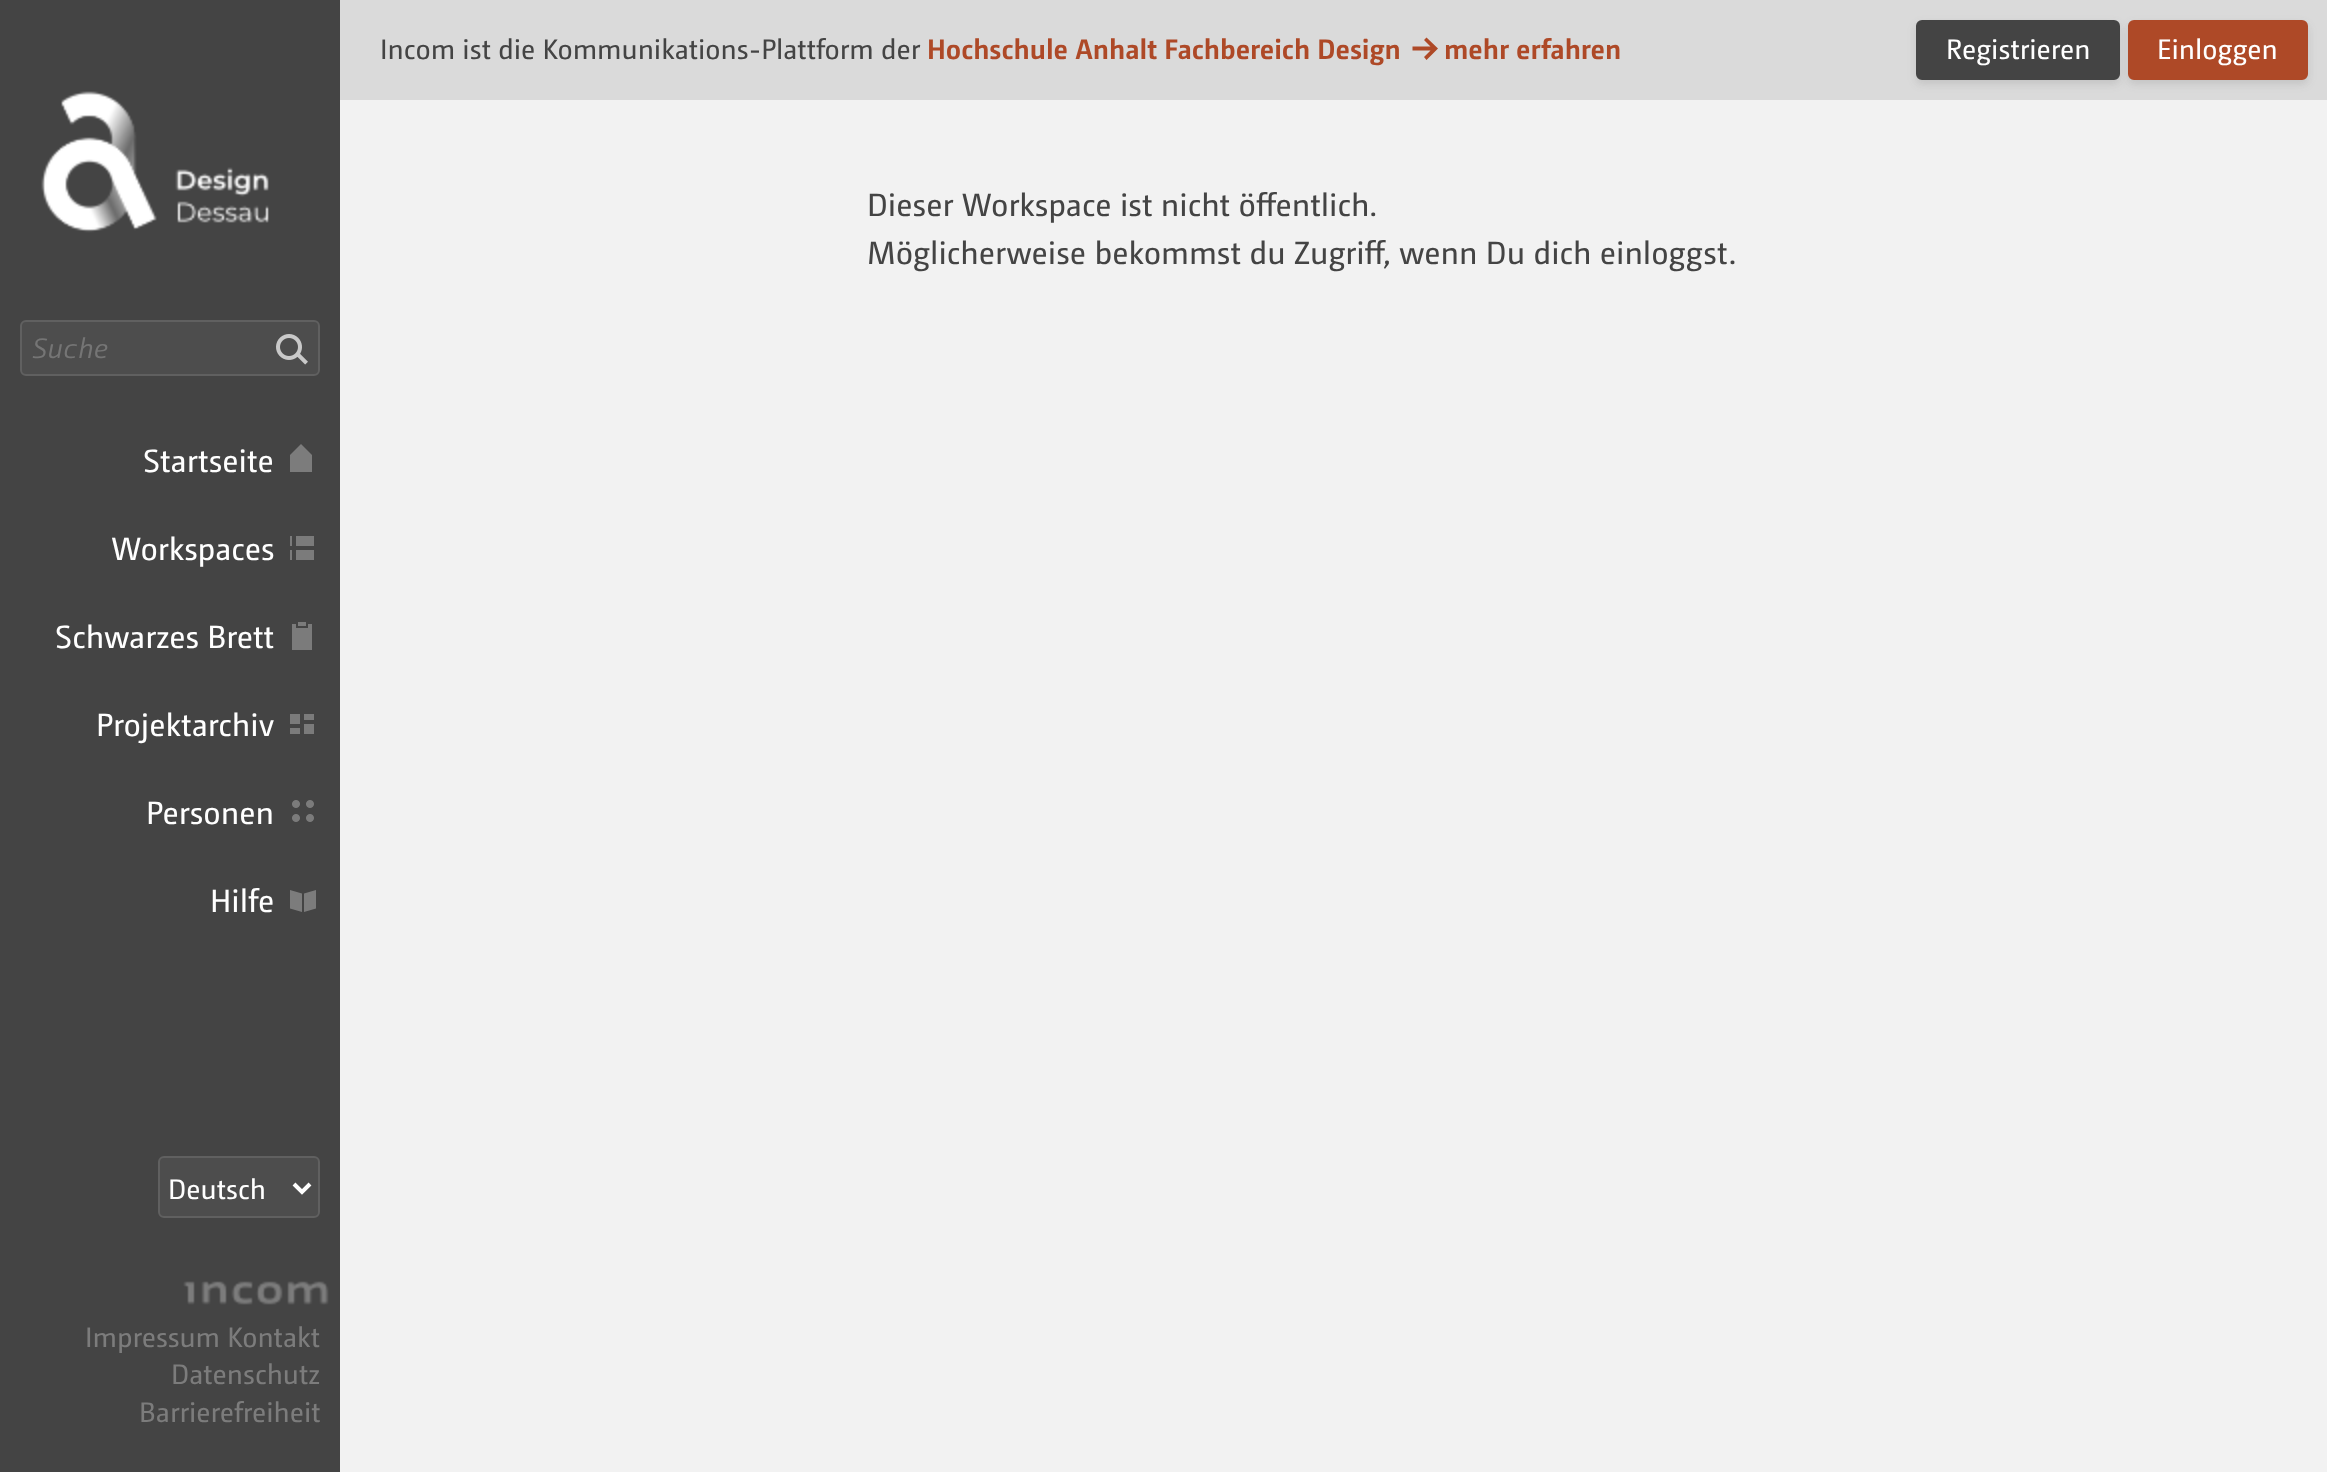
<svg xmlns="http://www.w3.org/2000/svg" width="2327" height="1472">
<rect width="100%" height="100%" fill="#f2f2f2"/>
<rect x="340" width="1987" height="100" fill="#dadada"/>
<text x="380" y="59" style="font-family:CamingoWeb;font-size:28px;fill:#444">Incom ist die Kommunikations-Plattform der</text>
<text x="927" y="59" style="font-family:CamingoWeb;font-size:28px;font-weight:bold;fill:#ae4927">Hochschule Anhalt Fachbereich Design</text>
<path d="M1438 48.5l-11.5 11.5l-2.5-3l6.5-6.5h-18v-4h18l-6.5-6.5l2.5-2.5z" fill="#ae4927" fill-rule="evenodd"/>
<text x="1444" y="59" style="font-family:CamingoWeb;font-size:28px;font-weight:bold;fill:#ae4927">mehr erfahren</text>
<rect x="1916" y="24" width="204" height="60" rx="6" fill="#44444426" filter="blur(4px)"/>
<rect x="1917" y="21" width="202" height="58" rx="5" fill="#444" stroke="#444" stroke-width="2"/>
<text x="1946" y="59" style="font-family:CamingoWeb;font-size:28px;fill:#fff">Registrieren</text>
<rect x="2128" y="24" width="180" height="60" rx="6" fill="#44444426" filter="blur(4px)"/>
<rect x="2129" y="21" width="178" height="58" rx="5" fill="#ae4927" stroke="#ae4927" stroke-width="2"/>
<text x="2157" y="59" style="font-family:CamingoWeb;font-size:28px;fill:#fff">Einloggen</text>
<text x="867" y="216" style="font-family:CamingoWeb;font-size:32px;fill:#444">Dieser Workspace ist nicht öffentlich.</text>
<text x="867" y="264" style="font-family:CamingoWeb;font-size:32px;fill:#444">Möglicherweise bekommst du Zugriff, wenn Du dich einloggst.</text>
<rect width="340" height="1472" fill="#444"/>
<image x="41" y="91" width="228" height="142" href="media/1.png"/>
<rect x="21" y="321" width="298" height="54" rx="5" fill="#4d4d4d" stroke="#606060" stroke-width="2"/>
<text x="32" y="358" style="font-family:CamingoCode;font-size:28px;font-style:italic;fill:#757575">Suche</text>
<image x="276" y="334" width="32" height="31" href="media/2.png"/>
<text x="143" y="472" style="font-family:CamingoWeb;font-size:32px;fill:#fff">Startseite</text>
<path d="M301 444l11 11v17h-22v-17z" fill="#7c7c7c" fill-rule="evenodd"/>
<text x="111" y="560" style="font-family:CamingoWeb;font-size:32px;fill:#fff">Workspaces</text>
<image x="290" y="536" width="24" height="24" href="media/3.png"/>
<text x="55" y="648" style="font-family:CamingoWeb;font-size:32px;fill:#fff">Schwarzes Brett</text>
<image x="292" y="622" width="20" height="28" href="media/4.png"/>
<text x="96" y="736" style="font-family:CamingoWeb;font-size:32px;fill:#fff">Projektarchiv</text>
<image x="290" y="714" width="24" height="20" href="media/5.png"/>
<text x="146" y="824" style="font-family:CamingoWeb;font-size:32px;fill:#fff">Personen</text>
<image x="292" y="800" width="22" height="22" href="media/6.png"/>
<text x="210" y="912" style="font-family:CamingoWeb;font-size:32px;fill:#fff">Hilfe</text>
<path d="M290 890l12 3.5v18.5l-12-3.5zm26 0v18.5l-12 3.5v-18.5z" fill="#7c7c7c" fill-rule="evenodd"/>
<rect x="159" y="1157" width="160" height="60" rx="5" fill="#4d4d4d" stroke="#606060" stroke-width="2"/>
<path d="M294 1184l8 8l8-8" fill="none" stroke="#fff" stroke-width="4"/>
<text x="168" y="1199" style="font-family:CamingoWeb;font-size:28px;fill:#fff">Deutsch</text>
<image x="183" y="1281" width="146" height="24" href="media/7.png"/>
<text x="85" y="1347" style="font-family:CamingoWeb;font-size:28px;fill:#7c7c7c">Impressum Kontakt</text>
<text x="171" y="1384" style="font-family:CamingoWeb;font-size:28px;fill:#7c7c7c">Datenschutz</text>
<text x="139" y="1422" style="font-family:CamingoWeb;font-size:28px;fill:#7c7c7c">Barrierefreiheit</text>
</svg>
